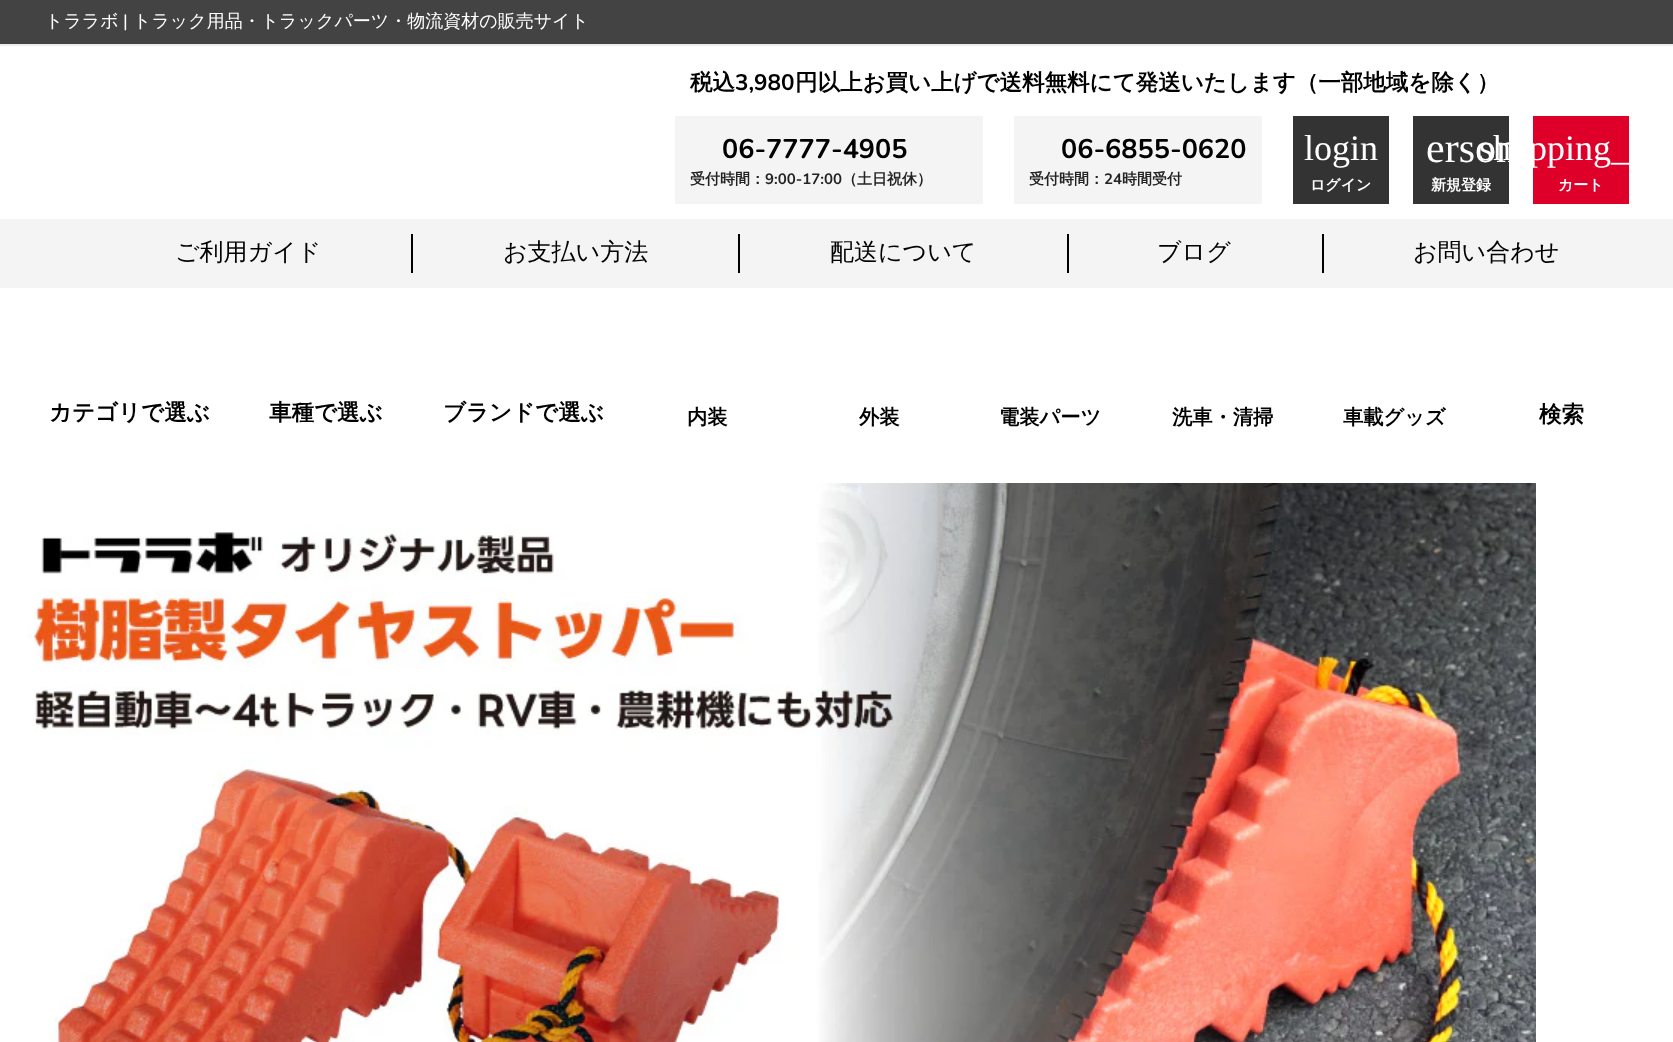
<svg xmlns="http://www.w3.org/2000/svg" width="1673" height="1042">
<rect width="100%" height="100%" fill="#fff"/>
<rect width="1673" height="44" fill="#434343"/>
<text x="45" y="27" style="font-family:WenQuanYi Zen Hei;font-size:18px;font-weight:500;fill:#fff">トララボ</text>
<text x="123" y="27" style="font-family:Nunito;font-size:18px;fill:#fff">|</text>
<text x="133" y="27" style="font-family:WenQuanYi Zen Hei;font-size:18px;font-weight:500;fill:#fff">トラック用品・トラックパーツ・物流資材の販売サイト</text>
<rect y="44" width="1673" height="2" fill="#ececec"/>
<text x="690" y="90" style="font-family:WenQuanYi Zen Hei;font-size:22.5px;font-weight:bold;fill:#000">税込</text>
<text x="735" y="90" style="font-family:Nunito;font-size:22.5px;font-weight:bold;fill:#000">3,980</text>
<text x="795" y="90" style="font-family:WenQuanYi Zen Hei;font-size:22.5px;font-weight:bold;fill:#000">円以上お買い上げで送料無料にて発送いたします（一部地域を除く）</text>
<rect x="675" y="116" width="308" height="88" fill="#f4f4f4"/>
<text x="722" y="158" style="font-family:Nunito;font-size:27px;font-weight:bold;fill:#000">06-7777-4905</text>
<text x="690" y="184" style="font-family:WenQuanYi Zen Hei;font-size:15px;font-weight:bold;fill:#232323">受付時間：</text>
<text x="765" y="184" style="font-family:Nunito;font-size:15px;font-weight:bold;fill:#232323">9:00-17:00</text>
<text x="842" y="184" style="font-family:WenQuanYi Zen Hei;font-size:15px;font-weight:bold;fill:#232323">（土日祝休）</text>
<rect x="1014" y="116" width="248" height="88" fill="#f4f4f4"/>
<text x="1061" y="158" style="font-family:Nunito;font-size:27px;font-weight:bold;fill:#000">06-6855-0620</text>
<text x="1029" y="184" style="font-family:WenQuanYi Zen Hei;font-size:15px;font-weight:bold;fill:#232323">受付時間：</text>
<text x="1104" y="184" style="font-family:Nunito;font-size:15px;font-weight:bold;fill:#232323">24</text>
<text x="1122" y="184" style="font-family:WenQuanYi Zen Hei;font-size:15px;font-weight:bold;fill:#232323">時間受付</text>
<rect x="1293" y="116" width="96" height="88" fill="#333"/>
<text x="1304" y="160" style="font-family:Liberation Serif;font-size:36px;fill:#fff">login</text>
<text x="1310" y="190" style="font-family:WenQuanYi Zen Hei;font-size:15px;font-weight:bold;fill:#fff">ログイン</text>
<rect x="1413" y="116" width="96" height="88" fill="#333"/>
<text x="1426" y="162" style="font-family:Liberation Serif;font-size:42px;fill:#fff">erson</text>
<text x="1431" y="190" style="font-family:WenQuanYi Zen Hei;font-size:15px;font-weight:bold;fill:#fff">新規登録</text>
<rect x="1533" y="116" width="96" height="88" fill="#de0029"/>
<text x="1479" y="160" style="font-family:Liberation Serif;font-size:36px;fill:#fff">shopping_</text>
<text x="1558" y="190" style="font-family:WenQuanYi Zen Hei;font-size:15px;font-weight:bold;fill:#fff">カート</text>
<rect y="219" width="1673" height="69" fill="#f4f4f4"/>
<text x="175" y="260" style="font-family:WenQuanYi Zen Hei;font-size:24px;font-weight:500;fill:#000">ご利用ガイド</text>
<rect x="411" y="234" width="2" height="39" fill="#000"/>
<text x="503" y="260" style="font-family:WenQuanYi Zen Hei;font-size:24px;font-weight:500;fill:#000">お支払い方法</text>
<rect x="738" y="234" width="2" height="39" fill="#000"/>
<text x="830" y="260" style="font-family:WenQuanYi Zen Hei;font-size:24px;font-weight:500;fill:#000">配送について</text>
<rect x="1067" y="234" width="2" height="39" fill="#000"/>
<text x="1157" y="260" style="font-family:WenQuanYi Zen Hei;font-size:24px;font-weight:500;fill:#000">ブログ</text>
<rect x="1322" y="234" width="2" height="39" fill="#000"/>
<text x="1413" y="260" style="font-family:WenQuanYi Zen Hei;font-size:24px;font-weight:500;fill:#000">お問い合わせ</text>
<text x="49" y="420" style="font-family:WenQuanYi Zen Hei;font-size:22.5px;font-weight:bold;fill:#000">カテゴリで選ぶ</text>
<text x="269" y="420" style="font-family:WenQuanYi Zen Hei;font-size:22.5px;font-weight:bold;fill:#000">車種で選ぶ</text>
<text x="443" y="420" style="font-family:WenQuanYi Zen Hei;font-size:22.5px;font-weight:bold;fill:#000">ブランドで選ぶ</text>
<text x="687" y="424" style="font-family:WenQuanYi Zen Hei;font-size:20.25px;font-weight:bold;fill:#000">内装</text>
<text x="859" y="424" style="font-family:WenQuanYi Zen Hei;font-size:20.25px;font-weight:bold;fill:#000">外装</text>
<text x="999" y="424" style="font-family:WenQuanYi Zen Hei;font-size:20.25px;font-weight:bold;fill:#000">電装パーツ</text>
<text x="1172" y="424" style="font-family:WenQuanYi Zen Hei;font-size:20.25px;font-weight:bold;fill:#000">洗車・清掃</text>
<text x="1343" y="424" style="font-family:WenQuanYi Zen Hei;font-size:20.25px;font-weight:bold;fill:#000">車載グッズ</text>
<text x="1539" y="422" style="font-family:WenQuanYi Zen Hei;font-size:22.5px;font-weight:bold;fill:#000">検索</text>
<image x="27" y="483" width="1509" height="559" href="media/1.png"/>
</svg>
